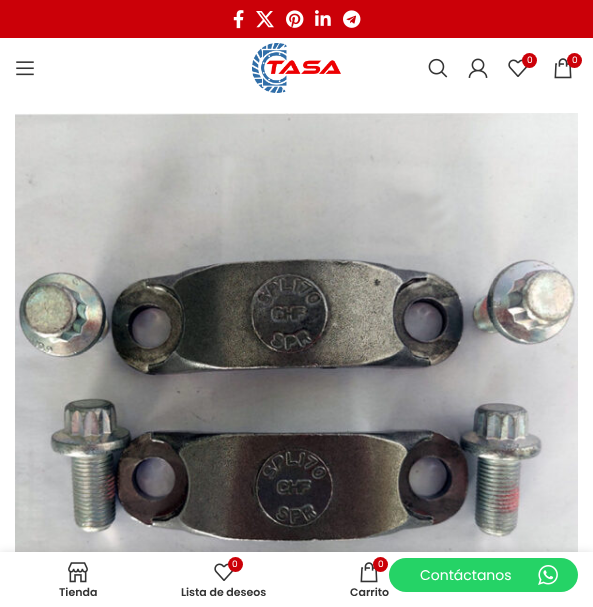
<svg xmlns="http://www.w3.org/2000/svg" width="593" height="607">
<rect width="100%" height="100%" fill="#fff"/>
<rect width="593" height="38" fill="#cb0008"/>
<image x="233" y="10" width="11" height="19" href="media/1.png"/>
<image x="256" y="11" width="18" height="17" href="media/2.png"/>
<image x="286" y="10" width="18" height="18" href="media/3.png"/>
<image x="315" y="10" width="16" height="16" href="media/4.png"/>
<image x="343" y="10" width="18" height="18" href="media/5.png"/>
<image x="252" y="43" width="89" height="50" href="media/6.png"/>
<image x="428" y="58" width="20" height="20" href="media/7.png"/>
<image x="468" y="58" width="20" height="20" href="media/8.png"/>
<image x="508" y="59" width="20" height="18" href="media/9.png"/>
<circle cx="529.5" cy="60.5" r="7.5" fill="#cb0008"/>
<text x="527" y="63" style="font-family:Poppins;font-size:9px;fill:#fff">0</text>
<image x="554" y="58" width="18" height="21" href="media/10.png"/>
<circle cx="574.5" cy="60.5" r="7.5" fill="#cb0008"/>
<text x="572" y="63" style="font-family:Poppins;font-size:9px;fill:#fff">0</text>
<image x="16" y="61" width="18" height="15" href="media/11.png"/>
<image x="15" y="113" width="563" height="439" href="media/12.png"/>
<rect y="552" width="593" height="55" fill="#0000001f" filter="blur(4.5px)"/>
<rect y="552" width="593" height="55" fill="#fff"/>
<image x="68" y="562" width="20" height="21" href="media/13.png"/>
<text x="59" y="596" style="font-family:Poppins;font-size:11px;font-weight:600;fill:#333">Tienda</text>
<image x="214" y="563" width="20" height="18" href="media/9.png"/>
<circle cx="235.5" cy="564.5" r="7.5" fill="#cb0008"/>
<text x="232" y="567" style="font-family:Poppins;font-size:9px;fill:#fff">0</text>
<text x="181" y="596" style="font-family:Poppins;font-size:11px;font-weight:600;fill:#333">Lista de deseos</text>
<image x="360" y="562" width="18" height="21" href="media/10.png"/>
<circle cx="380.5" cy="564.5" r="7.5" fill="#cb0008"/>
<text x="378" y="567" style="font-family:Poppins;font-size:9px;fill:#fff">0</text>
<text x="350" y="596" style="font-family:Poppins;font-size:11px;font-weight:600;fill:#333">Carrito</text>
<rect x="389" y="558" width="189" height="34" rx="17" fill="#25d366"/>
<text x="420" y="580" style="font-family:Poppins;font-size:14px;fill:#fff">Contáctanos</text>
<image x="538" y="565" width="20" height="20" href="media/14.png"/>
</svg>
